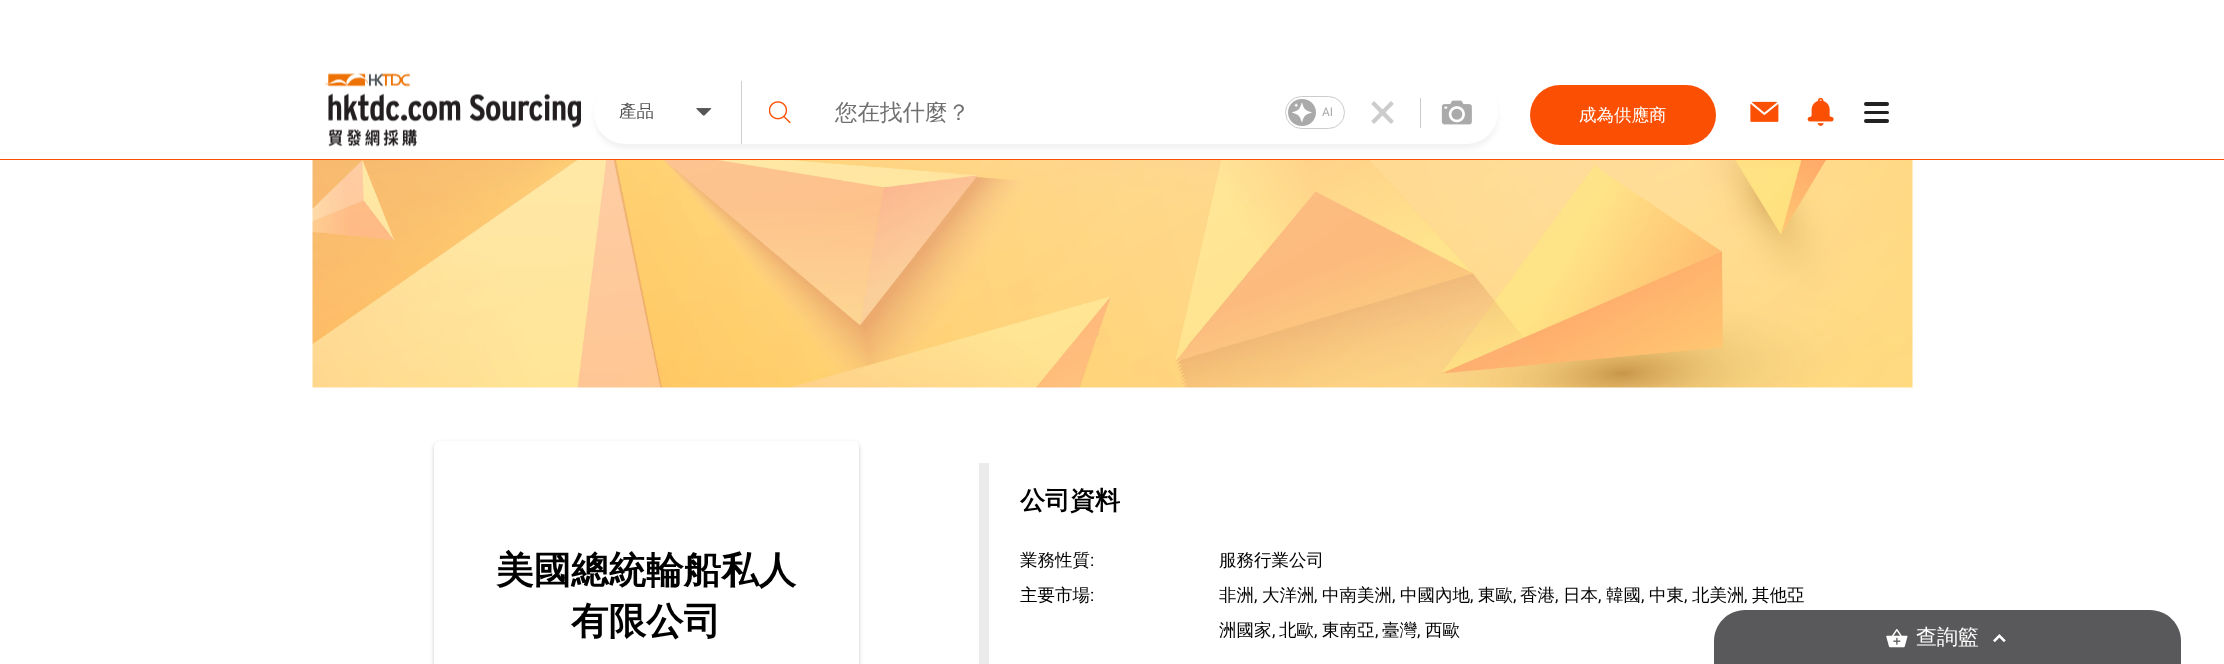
<svg xmlns="http://www.w3.org/2000/svg" width="2224" height="664">
<defs>
<clipPath id="clip1"><path d="M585 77h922v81h-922zm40.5 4h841c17.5 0 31.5 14 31.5 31.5c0 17.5-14 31.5-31.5 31.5h-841c-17.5 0-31.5-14-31.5-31.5c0-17.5 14-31.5 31.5-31.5z" clip-rule="evenodd"/></clipPath>
</defs>
<rect width="100%" height="100%" fill="#fff"/>
<rect y="159" width="2224" height="1" fill="#fb5004"/>
<image x="325" y="73" width="256" height="74" href="media/1.png"/>
<g clip-path="url(#clip1)">
<rect x="594" y="86" width="904" height="63" rx="31.5" fill="#7f7f7f1a" filter="blur(2.5px)"/>
</g>
<rect x="741" y="81" width="1" height="63" fill="#cfcfcf"/>
<text x="619" y="117" style="font-family:WenQuanYi Zen Hei;font-size:17.5px;font-weight:500;fill:#555">產品</text>
<image x="696" y="108" width="16" height="8" href="media/2.png"/>
<image x="769" y="101" width="22" height="22" href="media/3.png"/>
<text x="835" y="120" style="font-family:WenQuanYi Zen Hei;font-size:22.5px;font-weight:500;fill:#707070">您在找什麼？</text>
<rect x="1285.5" y="96.5" width="59" height="32" rx="16" fill="none" stroke="#ccc"/>
<image x="1288" y="99" width="28" height="27" href="media/4.png"/>
<text x="1322" y="116" style="font-family:Roboto;font-size:12px;fill:#aaa">AI</text>
<image x="1371" y="101" width="23" height="23" href="media/5.png"/>
<rect x="1420" y="98" width="1" height="30" fill="#ccc"/>
<image x="1441" y="100" width="31" height="25" href="media/6.png"/>
<rect x="1530" y="85" width="186" height="60" rx="30" fill="#fb5004"/>
<text x="1579" y="121" style="font-family:WenQuanYi Zen Hei;font-size:17.5px;font-weight:500;fill:#fff">成為供應商</text>
<image x="1750" y="101" width="29" height="21" href="media/7.png"/>
<image x="1807" y="98" width="27" height="28" href="media/8.png"/>
<rect x="1864" y="102" width="25" height="4" rx="2" fill="#222"/>
<rect x="1864" y="111" width="25" height="3" rx="1.5" fill="#222"/>
<rect x="1864" y="119" width="25" height="4" rx="2" fill="#222"/>
<image x="312" y="160" width="1601" height="228" href="media/9.png"/>
<rect x="434" y="443" width="425" height="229" rx="6" fill="#00000024" filter="blur(0.5px)"/>
<rect x="434" y="443" width="425" height="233" rx="6" fill="#00000033" filter="blur(2px)"/>
<rect x="434" y="441" width="425" height="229" rx="6" fill="#fff"/>
<text x="496" y="583" style="font-family:WenQuanYi Zen Hei;font-size:37.5px;font-weight:bold;fill:#000">美國總統輪船私人</text>
<text x="571" y="634" style="font-family:WenQuanYi Zen Hei;font-size:37.5px;font-weight:bold;fill:#000">有限公司</text>
<rect x="979" y="463" width="10" height="201" fill="#ebebeb"/>
<text x="1020" y="509" style="font-family:WenQuanYi Zen Hei;font-size:25px;font-weight:bold;fill:#000">公司資料</text>
<text x="1020" y="566" style="font-family:WenQuanYi Zen Hei;font-size:17.5px;font-weight:500;fill:#000">業務性質</text>
<text x="1090" y="566" style="font-family:Roboto;font-size:17.5px;fill:#000">:</text>
<text x="1219" y="566" style="font-family:WenQuanYi Zen Hei;font-size:17.5px;font-weight:500;fill:#000">服務行業公司</text>
<text x="1020" y="601" style="font-family:WenQuanYi Zen Hei;font-size:17.5px;font-weight:500;fill:#000">主要市場</text>
<text x="1090" y="601" style="font-family:Roboto;font-size:17.5px;fill:#000">:</text>
<text x="1219" y="601" style="font-family:WenQuanYi Zen Hei;font-size:17.5px;font-weight:500;fill:#000">非洲</text>
<text x="1254" y="601" style="font-family:Roboto;font-size:17.5px;fill:#000">,</text>
<text x="1262" y="601" style="font-family:WenQuanYi Zen Hei;font-size:17.5px;font-weight:500;fill:#000">大洋洲</text>
<text x="1314" y="601" style="font-family:Roboto;font-size:17.5px;fill:#000">,</text>
<text x="1322" y="601" style="font-family:WenQuanYi Zen Hei;font-size:17.5px;font-weight:500;fill:#000">中南美洲</text>
<text x="1392" y="601" style="font-family:Roboto;font-size:17.5px;fill:#000">,</text>
<text x="1400" y="601" style="font-family:WenQuanYi Zen Hei;font-size:17.5px;font-weight:500;fill:#000">中國內地</text>
<text x="1470" y="601" style="font-family:Roboto;font-size:17.5px;fill:#000">,</text>
<text x="1478" y="601" style="font-family:WenQuanYi Zen Hei;font-size:17.5px;font-weight:500;fill:#000">東歐</text>
<text x="1513" y="601" style="font-family:Roboto;font-size:17.5px;fill:#000">,</text>
<text x="1520" y="601" style="font-family:WenQuanYi Zen Hei;font-size:17.5px;font-weight:500;fill:#000">香港</text>
<text x="1555" y="601" style="font-family:Roboto;font-size:17.5px;fill:#000">,</text>
<text x="1563" y="601" style="font-family:WenQuanYi Zen Hei;font-size:17.5px;font-weight:500;fill:#000">日本</text>
<text x="1598" y="601" style="font-family:Roboto;font-size:17.5px;fill:#000">,</text>
<text x="1606" y="601" style="font-family:WenQuanYi Zen Hei;font-size:17.5px;font-weight:500;fill:#000">韓國</text>
<text x="1641" y="601" style="font-family:Roboto;font-size:17.5px;fill:#000">,</text>
<text x="1649" y="601" style="font-family:WenQuanYi Zen Hei;font-size:17.5px;font-weight:500;fill:#000">中東</text>
<text x="1684" y="601" style="font-family:Roboto;font-size:17.5px;fill:#000">,</text>
<text x="1692" y="601" style="font-family:WenQuanYi Zen Hei;font-size:17.5px;font-weight:500;fill:#000">北美洲</text>
<text x="1744" y="601" style="font-family:Roboto;font-size:17.5px;fill:#000">,</text>
<text x="1752" y="601" style="font-family:WenQuanYi Zen Hei;font-size:17.5px;font-weight:500;fill:#000">其他亞</text>
<text x="1219" y="636" style="font-family:WenQuanYi Zen Hei;font-size:17.5px;font-weight:500;fill:#000">洲國家</text>
<text x="1272" y="636" style="font-family:Roboto;font-size:17.5px;fill:#000">,</text>
<text x="1279" y="636" style="font-family:WenQuanYi Zen Hei;font-size:17.5px;font-weight:500;fill:#000">北歐</text>
<text x="1314" y="636" style="font-family:Roboto;font-size:17.5px;fill:#000">,</text>
<text x="1322" y="636" style="font-family:WenQuanYi Zen Hei;font-size:17.5px;font-weight:500;fill:#000">東南亞</text>
<text x="1375" y="636" style="font-family:Roboto;font-size:17.5px;fill:#000">,</text>
<text x="1382" y="636" style="font-family:WenQuanYi Zen Hei;font-size:17.5px;font-weight:500;fill:#000">臺灣</text>
<text x="1417" y="636" style="font-family:Roboto;font-size:17.5px;fill:#000">,</text>
<text x="1425" y="636" style="font-family:WenQuanYi Zen Hei;font-size:17.5px;font-weight:500;fill:#000">西歐</text>
<path d="M1745 610h405c17 0 31 14 31 31v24h-467v-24c0-17 14-31 31-31z" fill="#59595b"/>
<image x="1886" y="629" width="22" height="19" href="media/10.png"/>
<text x="1916" y="644" style="font-family:WenQuanYi Zen Hei;font-size:21px;font-weight:500;fill:#fff">查詢籃</text>
<image x="1993" y="634" width="13" height="9" href="media/11.png"/>
</svg>
